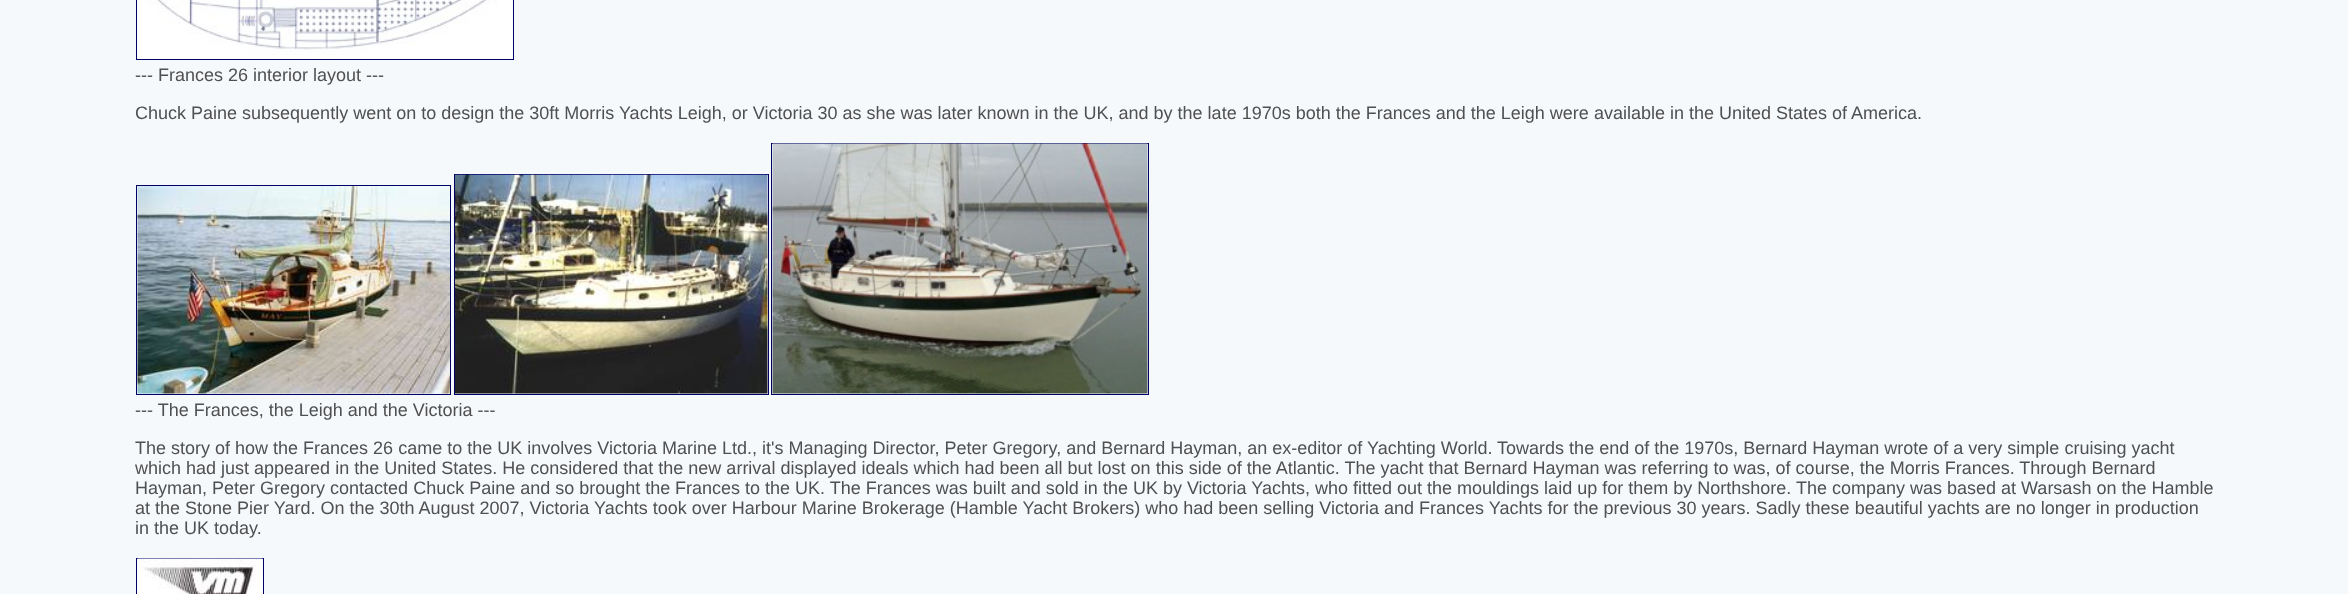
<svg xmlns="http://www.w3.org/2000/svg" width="2348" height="594">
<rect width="100%" height="100%" fill="#f6f9fc"/>
<rect x="136.5" y="-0.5" width="377" height="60" fill="none" stroke="#006"/>
<image x="137" y="0" width="376" height="59" href="media/1.png"/>
<text x="135" y="81" style="font-family:Liberation Sans;font-size:18px;fill:#505050">--- Frances 26 interior layout ---</text>
<text x="135" y="119" style="font-family:Liberation Sans;font-size:18px;fill:#505050">Chuck Paine subsequently went on to design the 30ft Morris Yachts Leigh, or Victoria 30 as she was later known in the UK, and by the late 1970s both the Frances and the Leigh were available in the United States of America.</text>
<rect x="771.5" y="143.5" width="377" height="251" fill="none" stroke="#006"/>
<rect x="454.5" y="174.5" width="314" height="220" fill="none" stroke="#006"/>
<image x="772" y="143" width="376" height="251" href="media/2.png"/>
<rect x="136.5" y="185.5" width="314" height="209" fill="none" stroke="#006"/>
<image x="455" y="174" width="313" height="220" href="media/3.png"/>
<image x="137" y="186" width="313" height="208" href="media/4.png"/>
<text x="135" y="416" style="font-family:Liberation Sans;font-size:18px;fill:#505050">--- The Frances, the Leigh and the Victoria ---</text>
<text x="135" y="454" style="font-family:Liberation Sans;font-size:18px;fill:#505050">The story of how the Frances 26 came to the UK involves Victoria Marine Ltd., it's Managing Director, Peter Gregory, and Bernard Hayman, an ex-editor of Yachting World. Towards the end of the 1970s, Bernard Hayman wrote of a very simple cruising yacht</text>
<text x="135" y="474" style="font-family:Liberation Sans;font-size:18px;fill:#505050">which had just appeared in the United States. He considered that the new arrival displayed ideals which had been all but lost on this side of the Atlantic. The yacht that Bernard Hayman was referring to was, of course, the Morris Frances. Through Bernard</text>
<text x="135" y="494" style="font-family:Liberation Sans;font-size:18px;fill:#505050">Hayman, Peter Gregory contacted Chuck Paine and so brought the</text>
<text x="675" y="494" style="font-family:Liberation Sans;font-size:18px;fill:#505050">Frances to the UK. The Frances was built and sold in the UK by Victoria Yachts, who fitted out the mouldings laid up for them by Northshore. The company was based at Warsash on the Hamble</text>
<text x="135" y="514" style="font-family:Liberation Sans;font-size:18px;fill:#505050">at the Stone Pier Yard. On the 30th August 2007, Victoria Yachts took over Harbour Marine Brokerage (Hamble Yacht Brokers) who had been selling Victoria and Frances Yachts for the previous 30 years. Sadly these beautiful yachts are no longer in production</text>
<text x="135" y="534" style="font-family:Liberation Sans;font-size:18px;fill:#505050">in the UK today.</text>
<rect x="136.5" y="558.5" width="127" height="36" fill="none" stroke="#006"/>
<image x="137" y="558" width="126" height="36" href="media/5.png"/>
</svg>
